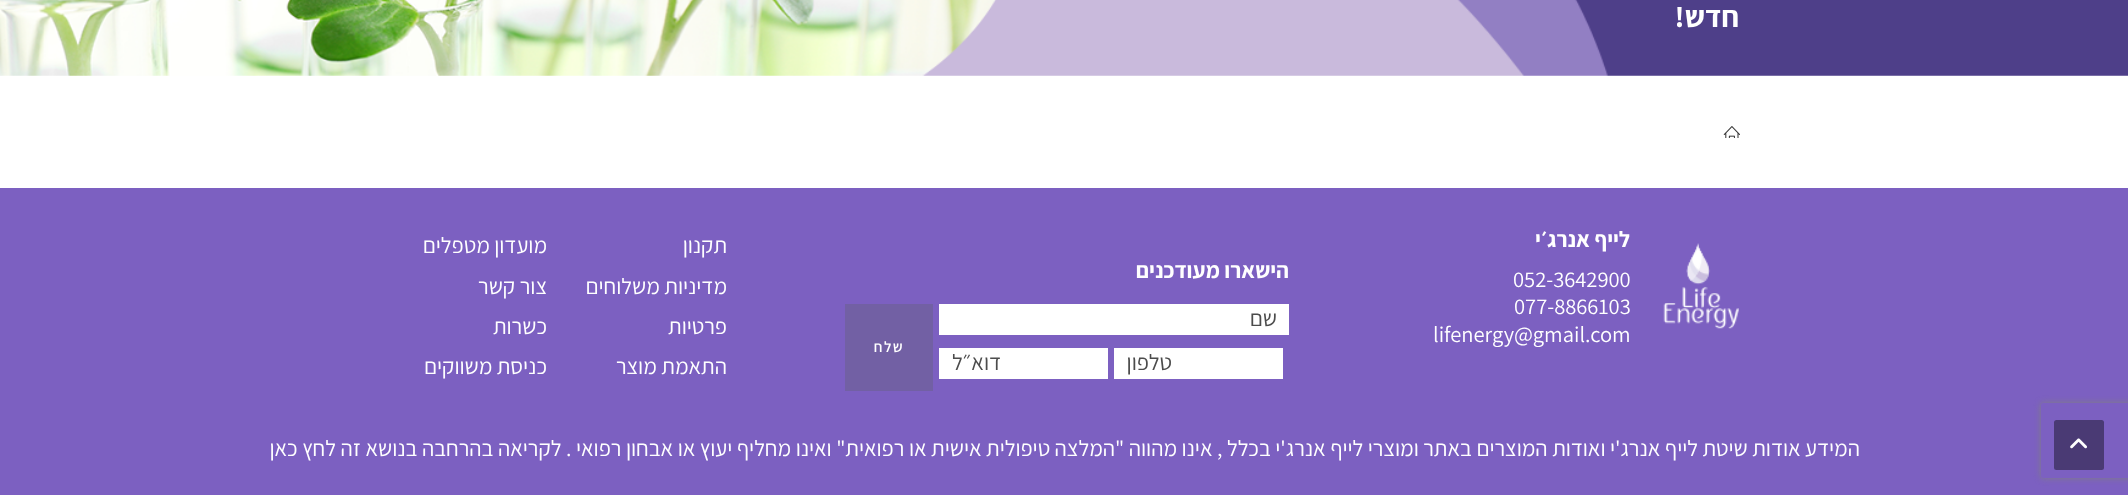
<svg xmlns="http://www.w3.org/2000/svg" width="2128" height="495">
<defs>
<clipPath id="clip1"><path d="M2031 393h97v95h-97zm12.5 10h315c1.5 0 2.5 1 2.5 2.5v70c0 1.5-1 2.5-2.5 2.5h-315c-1.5 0-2.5-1-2.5-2.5v-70c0-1.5 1-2.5 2.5-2.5z" clip-rule="evenodd"/></clipPath>
</defs>
<rect width="100%" height="100%" fill="#fff"/>
<rect y="188" width="2128" height="307" fill="#7c60c1"/>
<g clip-path="url(#clip1)">
<rect x="2041" y="403" width="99" height="75" rx="2.5" fill="#808080" filter="blur(3px)"/>
</g>
<image x="0" y="0" width="2128" height="76" href="media/1.png"/>
<text x="1739" y="27" style="font-family:Assistant;font-size:30px;font-weight:bold;direction:rtl;fill:#fff">חדש!</text>
<image x="1723" y="126" width="17" height="12" href="media/2.png"/>
<image x="1663" y="243" width="76" height="86" href="media/3.png"/>
<text x="1630" y="247" style="font-family:Assistant;font-size:22.5px;font-weight:bold;direction:rtl;fill:#fff">לייף אנרג׳י</text>
<text x="1513" y="287" style="font-family:Assistant;font-size:22.5px;fill:#fff">052-3642900</text>
<text x="1514" y="314" style="font-family:Assistant;font-size:22.5px;fill:#fff">077-8866103</text>
<text x="1433" y="342" style="font-family:Assistant;font-size:22.5px;fill:#fff">lifenergy@gmail.com</text>
<text x="1289" y="278" style="font-family:Assistant;font-size:22.5px;font-weight:bold;direction:rtl;fill:#fff">הישארו מעודכנים</text>
<rect x="939" y="304" width="350" height="31" fill="#fff"/>
<text x="1277" y="326" style="font-family:Assistant;font-size:22.5px;direction:rtl;fill:#4c4c4c">שם</text>
<rect x="1114" y="348" width="169" height="31" fill="#fff"/>
<text x="1172" y="370" style="font-family:Assistant;font-size:22.5px;direction:rtl;fill:#4c4c4c">טלפון</text>
<rect x="939" y="348" width="169" height="31" fill="#fff"/>
<text x="1001" y="370" style="font-family:Assistant;font-size:22.5px;direction:rtl;fill:#4c4c4c">דוא״ל</text>
<rect x="845" y="304" width="88" height="87" fill="#7260a4"/>
<text x="904" y="352" style="font-family:Assistant;font-size:15px;font-weight:600;letter-spacing:1.5px;direction:rtl;fill:#fff">שלח</text>
<text x="727" y="253" style="font-family:Assistant;font-size:22.5px;direction:rtl;fill:#fff">תקנון</text>
<text x="547" y="253" style="font-family:Assistant;font-size:22.5px;direction:rtl;fill:#fff">מועדון מטפלים</text>
<text x="727" y="294" style="font-family:Assistant;font-size:22.5px;direction:rtl;fill:#fff">מדיניות משלוחים</text>
<text x="547" y="294" style="font-family:Assistant;font-size:22.5px;direction:rtl;fill:#fff">צור קשר</text>
<text x="727" y="334" style="font-family:Assistant;font-size:22.5px;direction:rtl;fill:#fff">פרטיות</text>
<text x="547" y="334" style="font-family:Assistant;font-size:22.5px;direction:rtl;fill:#fff">כשרות</text>
<text x="727" y="374" style="font-family:Assistant;font-size:22.5px;direction:rtl;fill:#fff">התאמת מוצר</text>
<text x="547" y="374" style="font-family:Assistant;font-size:22.5px;direction:rtl;fill:#fff">כניסת משווקים</text>
<text x="1860" y="456" style="font-family:Assistant;font-size:22.5px;direction:rtl;fill:#fff">המידע אודות שיטת לייף אנרג'י ואודות המוצרים באתר ומוצרי לייף אנרג'י בכלל , אינו מהווה "המלצה טיפולית אישית או רפואית" ואינו מחליף יעוץ או אבחון רפואי . לקריאה בהרחבה בנושא זה</text>
<text x="336" y="456" style="font-family:Assistant;font-size:22.5px;direction:rtl;fill:#fff">לחץ כאן</text>
<rect x="2054" y="420" width="50" height="50" rx="2.5" fill="#4a3a74"/>
<image x="2070" y="438" width="17" height="11" href="media/4.png"/>
</svg>
